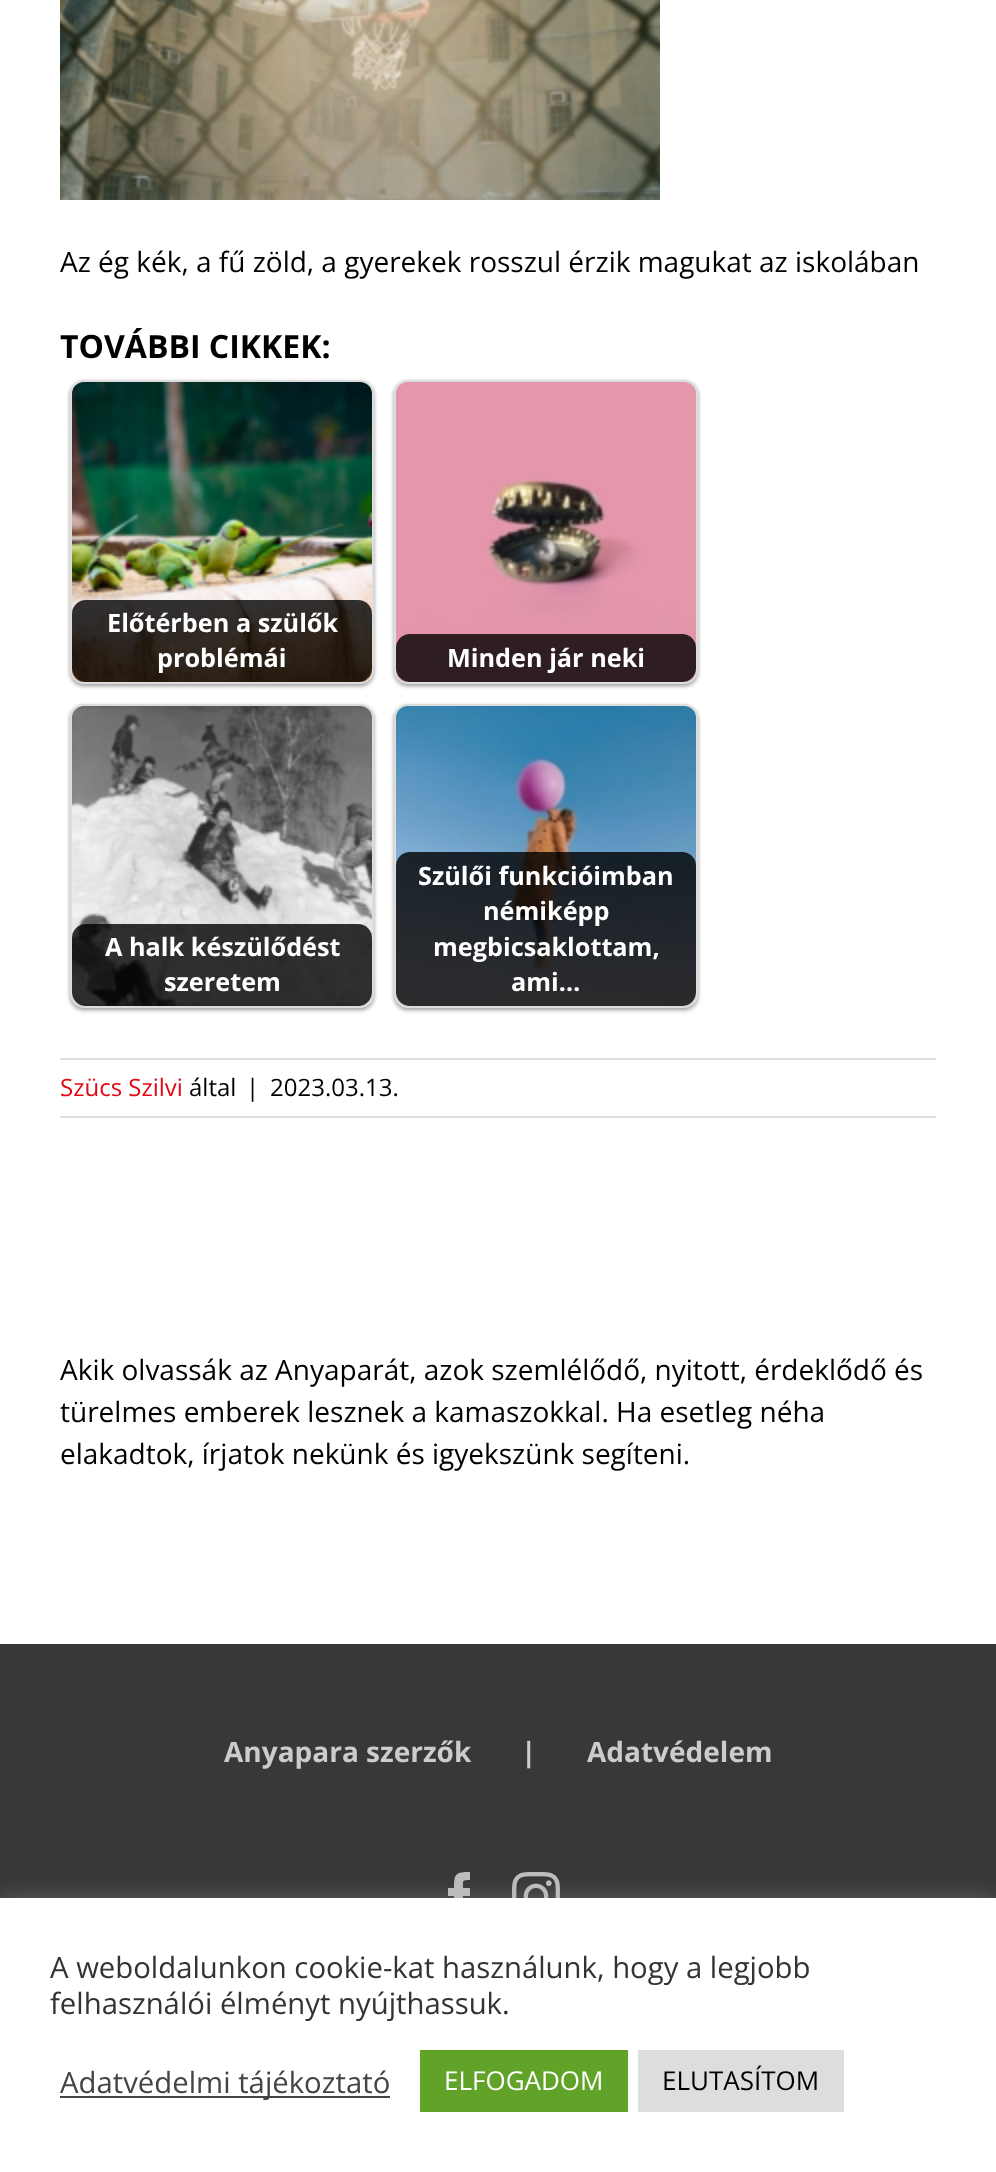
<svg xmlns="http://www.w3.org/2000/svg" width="996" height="2172">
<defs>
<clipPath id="clip1"><rect x="72" y="382" width="300" height="300" rx="12"/></clipPath>
<clipPath id="clip2"><rect x="396" y="382" width="300" height="300" rx="12"/></clipPath>
<clipPath id="clip3"><rect x="72" y="706" width="300" height="300" rx="12"/></clipPath>
<clipPath id="clip4"><rect x="396" y="706" width="300" height="300" rx="12"/></clipPath>
</defs>
<rect width="100%" height="100%" fill="#fff"/>
<image x="60" y="0" width="600" height="200" href="media/1.png"/>
<text x="60" y="272" style="font-family:Open Sans;font-size:28px;fill:#000">Az ég kék, a fű zöld, a gyerekek rosszul érzik magukat az iskolában</text>
<text x="60" y="358" style="font-family:Open Sans;font-size:32px;font-weight:bold;fill:#000">TOVÁBBI CIKKEK:</text>
<rect x="70" y="382" width="304" height="304" rx="14" fill="#00000066" filter="blur(2px)"/>
<rect x="71" y="381" width="302" height="302" rx="13" fill="none" stroke="#ddd" stroke-width="2"/>
<image x="72" y="382" width="300" height="300" href="media/2.png"/>
<g clip-path="url(#clip1)">
<rect x="72" y="600" width="300" height="82" rx="14" fill="#000000cc"/>
</g>
<text x="107" y="632" style="font-family:Open Sans;font-size:25.25px;font-weight:bold;fill:#fff">Előtérben a szülők</text>
<text x="157" y="667" style="font-family:Open Sans;font-size:25.25px;font-weight:bold;fill:#fff">problémái</text>
<rect x="394" y="382" width="304" height="304" rx="14" fill="#00000066" filter="blur(2px)"/>
<rect x="395" y="381" width="302" height="302" rx="13" fill="none" stroke="#ddd" stroke-width="2"/>
<image x="396" y="382" width="300" height="300" href="media/3.png"/>
<g clip-path="url(#clip2)">
<rect x="396" y="634" width="300" height="48" rx="14" fill="#000000cc"/>
</g>
<text x="447" y="667" style="font-family:Open Sans;font-size:25.25px;font-weight:bold;fill:#fff">Minden jár neki</text>
<rect x="70" y="706" width="304" height="304" rx="14" fill="#00000066" filter="blur(2px)"/>
<rect x="71" y="705" width="302" height="302" rx="13" fill="none" stroke="#ddd" stroke-width="2"/>
<image x="72" y="706" width="300" height="300" href="media/4.png"/>
<g clip-path="url(#clip3)">
<rect x="72" y="924" width="300" height="82" rx="14" fill="#000000cc"/>
</g>
<text x="105" y="956" style="font-family:Open Sans;font-size:25.25px;font-weight:bold;fill:#fff">A halk készülődést</text>
<text x="164" y="991" style="font-family:Open Sans;font-size:25.25px;font-weight:bold;fill:#fff">szeretem</text>
<rect x="394" y="706" width="304" height="304" rx="14" fill="#00000066" filter="blur(2px)"/>
<rect x="395" y="705" width="302" height="302" rx="13" fill="none" stroke="#ddd" stroke-width="2"/>
<image x="396" y="706" width="300" height="300" href="media/5.png"/>
<g clip-path="url(#clip4)">
<rect x="396" y="852" width="300" height="154" rx="14" fill="#000000cc"/>
</g>
<text x="418" y="885" style="font-family:Open Sans;font-size:25.25px;font-weight:bold;fill:#fff">Szülői funkcióimban</text>
<text x="483" y="920" style="font-family:Open Sans;font-size:25.25px;font-weight:bold;fill:#fff">némiképp</text>
<text x="433" y="956" style="font-family:Open Sans;font-size:25.25px;font-weight:bold;fill:#fff">megbicsaklottam,</text>
<text x="511" y="991" style="font-family:Open Sans;font-size:25.25px;font-weight:bold;fill:#fff">ami…</text>
<rect x="60" y="1058" width="876" height="2" fill="#e0dede"/>
<rect x="60" y="1116" width="876" height="2" fill="#e0dede"/>
<text x="60" y="1096" style="font-family:Open Sans;font-size:24px;fill:#e30613">Szücs Szilvi</text>
<text x="189" y="1096" style="font-family:Open Sans;font-size:24px;fill:#000">által</text>
<text x="246" y="1096" style="font-family:Open Sans;font-size:24px;fill:#000">|</text>
<text x="270" y="1096" style="font-family:Open Sans;font-size:24px;fill:#000">2023.03.13.</text>
<text x="60" y="1380" style="font-family:Open Sans;font-size:28px;fill:#000">Akik olvassák az Anyaparát, azok szemlélődő, nyitott, érdeklődő és</text>
<text x="60" y="1422" style="font-family:Open Sans;font-size:28px;fill:#000">türelmes emberek lesznek a kamaszokkal. Ha esetleg néha</text>
<text x="60" y="1464" style="font-family:Open Sans;font-size:28px;fill:#000">elakadtok, írjatok nekünk és igyekszünk segíteni.</text>
<rect y="1644" width="996" height="254" fill="#363839"/>
<text x="224" y="1762" style="font-family:Open Sans;font-size:28px;font-weight:bold;fill:#ccc">Anyapara szerzők</text>
<text x="521" y="1762" style="font-family:Open Sans;font-size:28px;font-weight:bold;fill:#ccc">|</text>
<text x="587" y="1762" style="font-family:Open Sans;font-size:28px;font-weight:bold;fill:#ccc">Adatvédelem</text>
<path d="M463 1920h-9v-24h-6v-8h6c0-15 2-16 16-16v8c-8 0-7 0-7 8h7v8h-7z" fill="#bebdbd"/>
<image x="512" y="1872" width="48" height="26" href="media/6.png"/>
<rect y="1896" width="996" height="274" fill="#acabab4d" filter="blur(10px)"/>
<rect y="1898" width="996" height="274" fill="#fff"/>
<text x="50" y="1978" style="font-family:Open Sans;font-size:29.3px;fill:#333">A weboldalunkon cookie-kat használunk, hogy a legjobb</text>
<text x="50" y="2014" style="font-family:Open Sans;font-size:29.3px;fill:#333">felhasználói élményt nyújthassuk.</text>
<rect x="60" y="2096" width="330" height="2" fill="#444"/>
<text x="60" y="2093" style="font-family:Open Sans;font-size:29.3px;fill:#444">Adatvédelmi tájékoztató</text>
<rect x="420" y="2050" width="208" height="62" fill="#61a229"/>
<text x="444" y="2090" style="font-family:Open Sans;font-size:26px;fill:#fff">ELFOGADOM</text>
<rect x="638" y="2050" width="206" height="62" fill="#ddd"/>
<text x="662" y="2090" style="font-family:Open Sans;font-size:26px;fill:#000">ELUTASÍTOM</text>
</svg>
